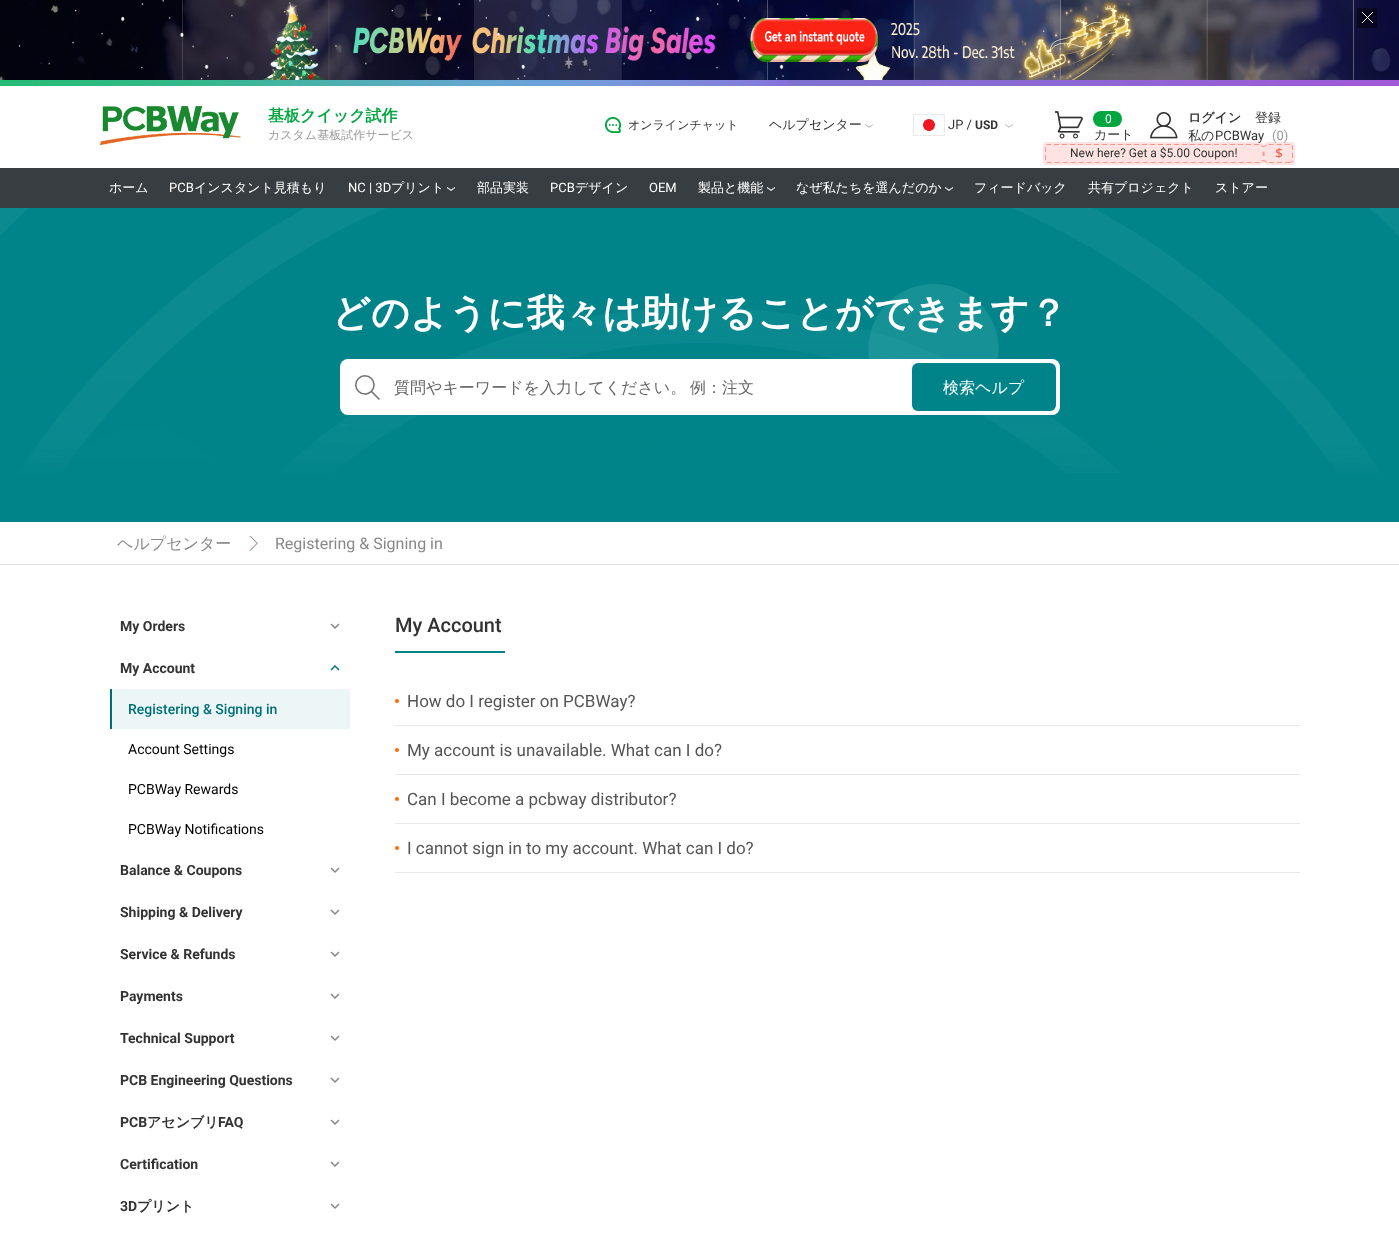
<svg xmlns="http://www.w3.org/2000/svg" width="1399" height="1238">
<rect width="100%" height="100%" fill="#fff"/>
<image x="0" y="0" width="1399" height="80" href="media/1.png"/>
<image x="1357" y="8" width="20" height="20" href="media/2.png"/>
<image x="0" y="80" width="1399" height="6" href="media/3.png"/>
<image x="100" y="106" width="141" height="39" href="media/4.png"/>
<text x="268" y="121" style="font-family:WenQuanYi Zen Hei;font-size:16px;font-weight:bold;fill:#00a63f">基板クイック試作</text>
<text x="268" y="139" style="font-family:WenQuanYi Zen Hei;font-size:12px;font-weight:500;fill:#999">カスタム基板試作サービス</text>
<image x="605" y="117" width="16" height="16" href="media/5.png"/>
<text x="628" y="129" style="font-family:WenQuanYi Zen Hei;font-size:12px;font-weight:500;fill:#333">オンラインチャット</text>
<text x="769" y="129" style="font-family:WenQuanYi Zen Hei;font-size:13px;font-weight:500;fill:#333">ヘルプセンター</text>
<image x="865" y="124" width="8" height="4" href="media/6.png"/>
<image x="923" y="119" width="12" height="12" href="media/7.png"/>
<rect x="913.5" y="114.5" width="31" height="21" fill="none" stroke="#eaeaea"/>
<text x="948" y="129" style="font-family:Roboto;font-size:13px;fill:#333">JP /</text>
<text x="975" y="129" style="font-family:Roboto;font-size:12px;font-weight:bold;fill:#333">USD</text>
<image x="1005" y="124" width="8" height="4" href="media/6.png"/>
<image x="1055" y="111" width="28" height="28" href="media/8.png"/>
<rect x="1093" y="111" width="29" height="16" rx="8" fill="#00a63f"/>
<text x="1105" y="123" style="font-family:Roboto;font-size:12px;fill:#fff">0</text>
<text x="1094" y="139" style="font-family:WenQuanYi Zen Hei;font-size:13px;font-weight:500;fill:#333">カート</text>
<image x="1150" y="112" width="28" height="27" href="media/9.png"/>
<text x="1188" y="122" style="font-family:WenQuanYi Zen Hei;font-size:13px;font-weight:bold;fill:#333">ログイン</text>
<text x="1255" y="122" style="font-family:WenQuanYi Zen Hei;font-size:13px;font-weight:500;fill:#333">登録</text>
<text x="1188" y="140" style="font-family:WenQuanYi Zen Hei;font-size:13px;font-weight:500;fill:#333">私の</text>
<image x="1043" y="142" width="252" height="23" href="media/10.png"/>
<text x="1215" y="140" style="font-family:Roboto;font-size:13px;fill:#333">PCBWay</text>
<text x="1272" y="140" style="font-family:Roboto;font-size:13px;fill:#999">(0)</text>
<text x="1070" y="157" style="font-family:Roboto;font-size:12px;fill:#333">New here? Get a $5.00 Coupon!</text>
<rect y="168" width="1399" height="40" fill="#373d41"/>
<text x="109" y="192" style="font-family:WenQuanYi Zen Hei;font-size:13px;font-weight:500;fill:#fff">ホーム</text>
<text x="169" y="192" style="font-family:Roboto;font-size:13px;fill:#fff">PCB</text>
<text x="194" y="192" style="font-family:WenQuanYi Zen Hei;font-size:13px;font-weight:500;fill:#fff">インスタント見積もり</text>
<text x="348" y="192" style="font-family:Roboto;font-size:13px;fill:#fff">NC | 3D</text>
<text x="391" y="192" style="font-family:WenQuanYi Zen Hei;font-size:13px;font-weight:500;fill:#fff">プリント</text>
<image x="447" y="187" width="8" height="4" href="media/11.png"/>
<text x="477" y="192" style="font-family:WenQuanYi Zen Hei;font-size:13px;font-weight:500;fill:#fff">部品実装</text>
<text x="550" y="192" style="font-family:Roboto;font-size:13px;fill:#fff">PCB</text>
<text x="575" y="192" style="font-family:WenQuanYi Zen Hei;font-size:13px;font-weight:500;fill:#fff">デザイン</text>
<text x="649" y="192" style="font-family:Roboto;font-size:13px;fill:#fff">OEM</text>
<text x="698" y="192" style="font-family:WenQuanYi Zen Hei;font-size:13px;font-weight:500;fill:#fff">製品と機能</text>
<image x="767" y="187" width="8" height="4" href="media/11.png"/>
<text x="796" y="192" style="font-family:WenQuanYi Zen Hei;font-size:13px;font-weight:500;fill:#fff">なぜ私たちを選んだのか</text>
<image x="945" y="187" width="8" height="4" href="media/11.png"/>
<text x="974" y="192" style="font-family:WenQuanYi Zen Hei;font-size:13px;font-weight:500;fill:#fff">フィードバック</text>
<text x="1088" y="192" style="font-family:WenQuanYi Zen Hei;font-size:13px;font-weight:500;fill:#fff">共有プロジェクト</text>
<text x="1215" y="192" style="font-family:WenQuanYi Zen Hei;font-size:13px;font-weight:500;fill:#fff">ストアー</text>
<rect y="234" width="1399" height="288" fill="#008489"/>
<image x="0" y="208" width="1399" height="265" href="media/12.png"/>
<text x="332" y="326" style="font-family:WenQuanYi Zen Hei;font-size:38px;font-weight:bold;fill:#fff">どのように我々は助けることができます？</text>
<rect x="340" y="359" width="720" height="56" rx="8" fill="#fff"/>
<image x="355" y="375" width="25" height="25" href="media/13.png"/>
<text x="394" y="393" word-spacing="-1" style="font-family:WenQuanYi Zen Hei;font-size:16px;font-weight:500;fill:#666">質問やキーワードを入力してください。 例：注文</text>
<rect x="912" y="363" width="144" height="48" rx="6" fill="#008489"/>
<text x="943" y="393" style="font-family:WenQuanYi Zen Hei;font-size:16px;font-weight:500;fill:#fff">検索ヘルプ</text>
<rect y="564" width="1399" height="1" fill="#e0e4e4"/>
<text x="117" y="549" style="font-family:WenQuanYi Zen Hei;font-size:16px;font-weight:500;fill:#888">ヘルプセンター</text>
<image x="249" y="535" width="9" height="16" href="media/14.png"/>
<text x="275" y="549" style="font-family:Roboto;font-size:16px;fill:#888">Registering &amp; Signing in</text>
<text x="120" y="631" style="font-family:Roboto;font-size:14px;font-weight:bold;fill:#333">My Orders</text>
<image x="330" y="623" width="10" height="6" href="media/15.png"/>
<text x="120" y="673" style="font-family:Roboto;font-size:14px;font-weight:bold;fill:#333">My Account</text>
<image x="330" y="665" width="10" height="6" href="media/16.png"/>
<rect x="110" y="689" width="2" height="40" fill="#007076"/>
<rect x="112" y="689" width="238" height="40" fill="#edf6f7"/>
<text x="128" y="714" style="font-family:Roboto;font-size:14px;font-weight:500;fill:#007076">Registering &amp; Signing in</text>
<text x="128" y="754" style="font-family:Roboto;font-size:14px;fill:#000">Account Settings</text>
<text x="128" y="794" style="font-family:Roboto;font-size:14px;fill:#000">PCBWay Rewards</text>
<text x="128" y="834" style="font-family:Roboto;font-size:14px;fill:#000">PCBWay Notifications</text>
<text x="120" y="875" style="font-family:Roboto;font-size:14px;font-weight:bold;fill:#333">Balance &amp; Coupons</text>
<image x="330" y="867" width="10" height="6" href="media/15.png"/>
<text x="120" y="917" style="font-family:Roboto;font-size:14px;font-weight:bold;fill:#333">Shipping &amp; Delivery</text>
<image x="330" y="909" width="10" height="6" href="media/15.png"/>
<text x="120" y="959" style="font-family:Roboto;font-size:14px;font-weight:bold;fill:#333">Service &amp; Refunds</text>
<image x="330" y="951" width="10" height="6" href="media/15.png"/>
<text x="120" y="1001" style="font-family:Roboto;font-size:14px;font-weight:bold;fill:#333">Payments</text>
<image x="330" y="993" width="10" height="6" href="media/15.png"/>
<text x="120" y="1043" style="font-family:Roboto;font-size:14px;font-weight:bold;fill:#333">Technical Support</text>
<image x="330" y="1035" width="10" height="6" href="media/15.png"/>
<text x="120" y="1085" style="font-family:Roboto;font-size:14px;font-weight:bold;fill:#333">PCB Engineering Questions</text>
<image x="330" y="1077" width="10" height="6" href="media/15.png"/>
<text x="120" y="1127" style="font-family:Roboto;font-size:14px;font-weight:bold;fill:#333">PCB</text>
<text x="147" y="1127" style="font-family:WenQuanYi Zen Hei;font-size:14px;font-weight:bold;fill:#333">アセンブリ</text>
<text x="218" y="1127" style="font-family:Roboto;font-size:14px;font-weight:bold;fill:#333">FAQ</text>
<image x="330" y="1119" width="10" height="6" href="media/15.png"/>
<text x="120" y="1169" style="font-family:Roboto;font-size:14px;font-weight:bold;fill:#333">Certification</text>
<image x="330" y="1161" width="10" height="6" href="media/15.png"/>
<text x="120" y="1211" style="font-family:Roboto;font-size:14px;font-weight:bold;fill:#333">3D</text>
<text x="137" y="1211" style="font-family:WenQuanYi Zen Hei;font-size:14px;font-weight:bold;fill:#333">プリント</text>
<image x="330" y="1203" width="10" height="6" href="media/15.png"/>
<rect x="395" y="651" width="110" height="2" fill="#008489"/>
<text x="395" y="632" style="font-family:Roboto;font-size:20px;font-weight:500;fill:#333">My Account</text>
<rect x="395" y="725" width="905" height="1" fill="#e8e8e8"/>
<circle cx="397" cy="701" r="2" fill="#ff6a00"/>
<text x="407" y="707" style="font-family:Roboto;font-size:17px;fill:#555">How do I register on PCBWay?</text>
<rect x="395" y="774" width="905" height="1" fill="#e8e8e8"/>
<circle cx="397" cy="750" r="2" fill="#ff6a00"/>
<text x="407" y="756" style="font-family:Roboto;font-size:17px;fill:#555">My account is unavailable. What can I do?</text>
<rect x="395" y="823" width="905" height="1" fill="#e8e8e8"/>
<circle cx="397" cy="799" r="2" fill="#ff6a00"/>
<text x="407" y="805" style="font-family:Roboto;font-size:17px;fill:#555">Can I become a pcbway distributor?</text>
<rect x="395" y="872" width="905" height="1" fill="#e8e8e8"/>
<circle cx="397" cy="848" r="2" fill="#ff6a00"/>
<text x="407" y="854" style="font-family:Roboto;font-size:17px;fill:#555">I cannot sign in to my account. What can I do?</text>
</svg>
